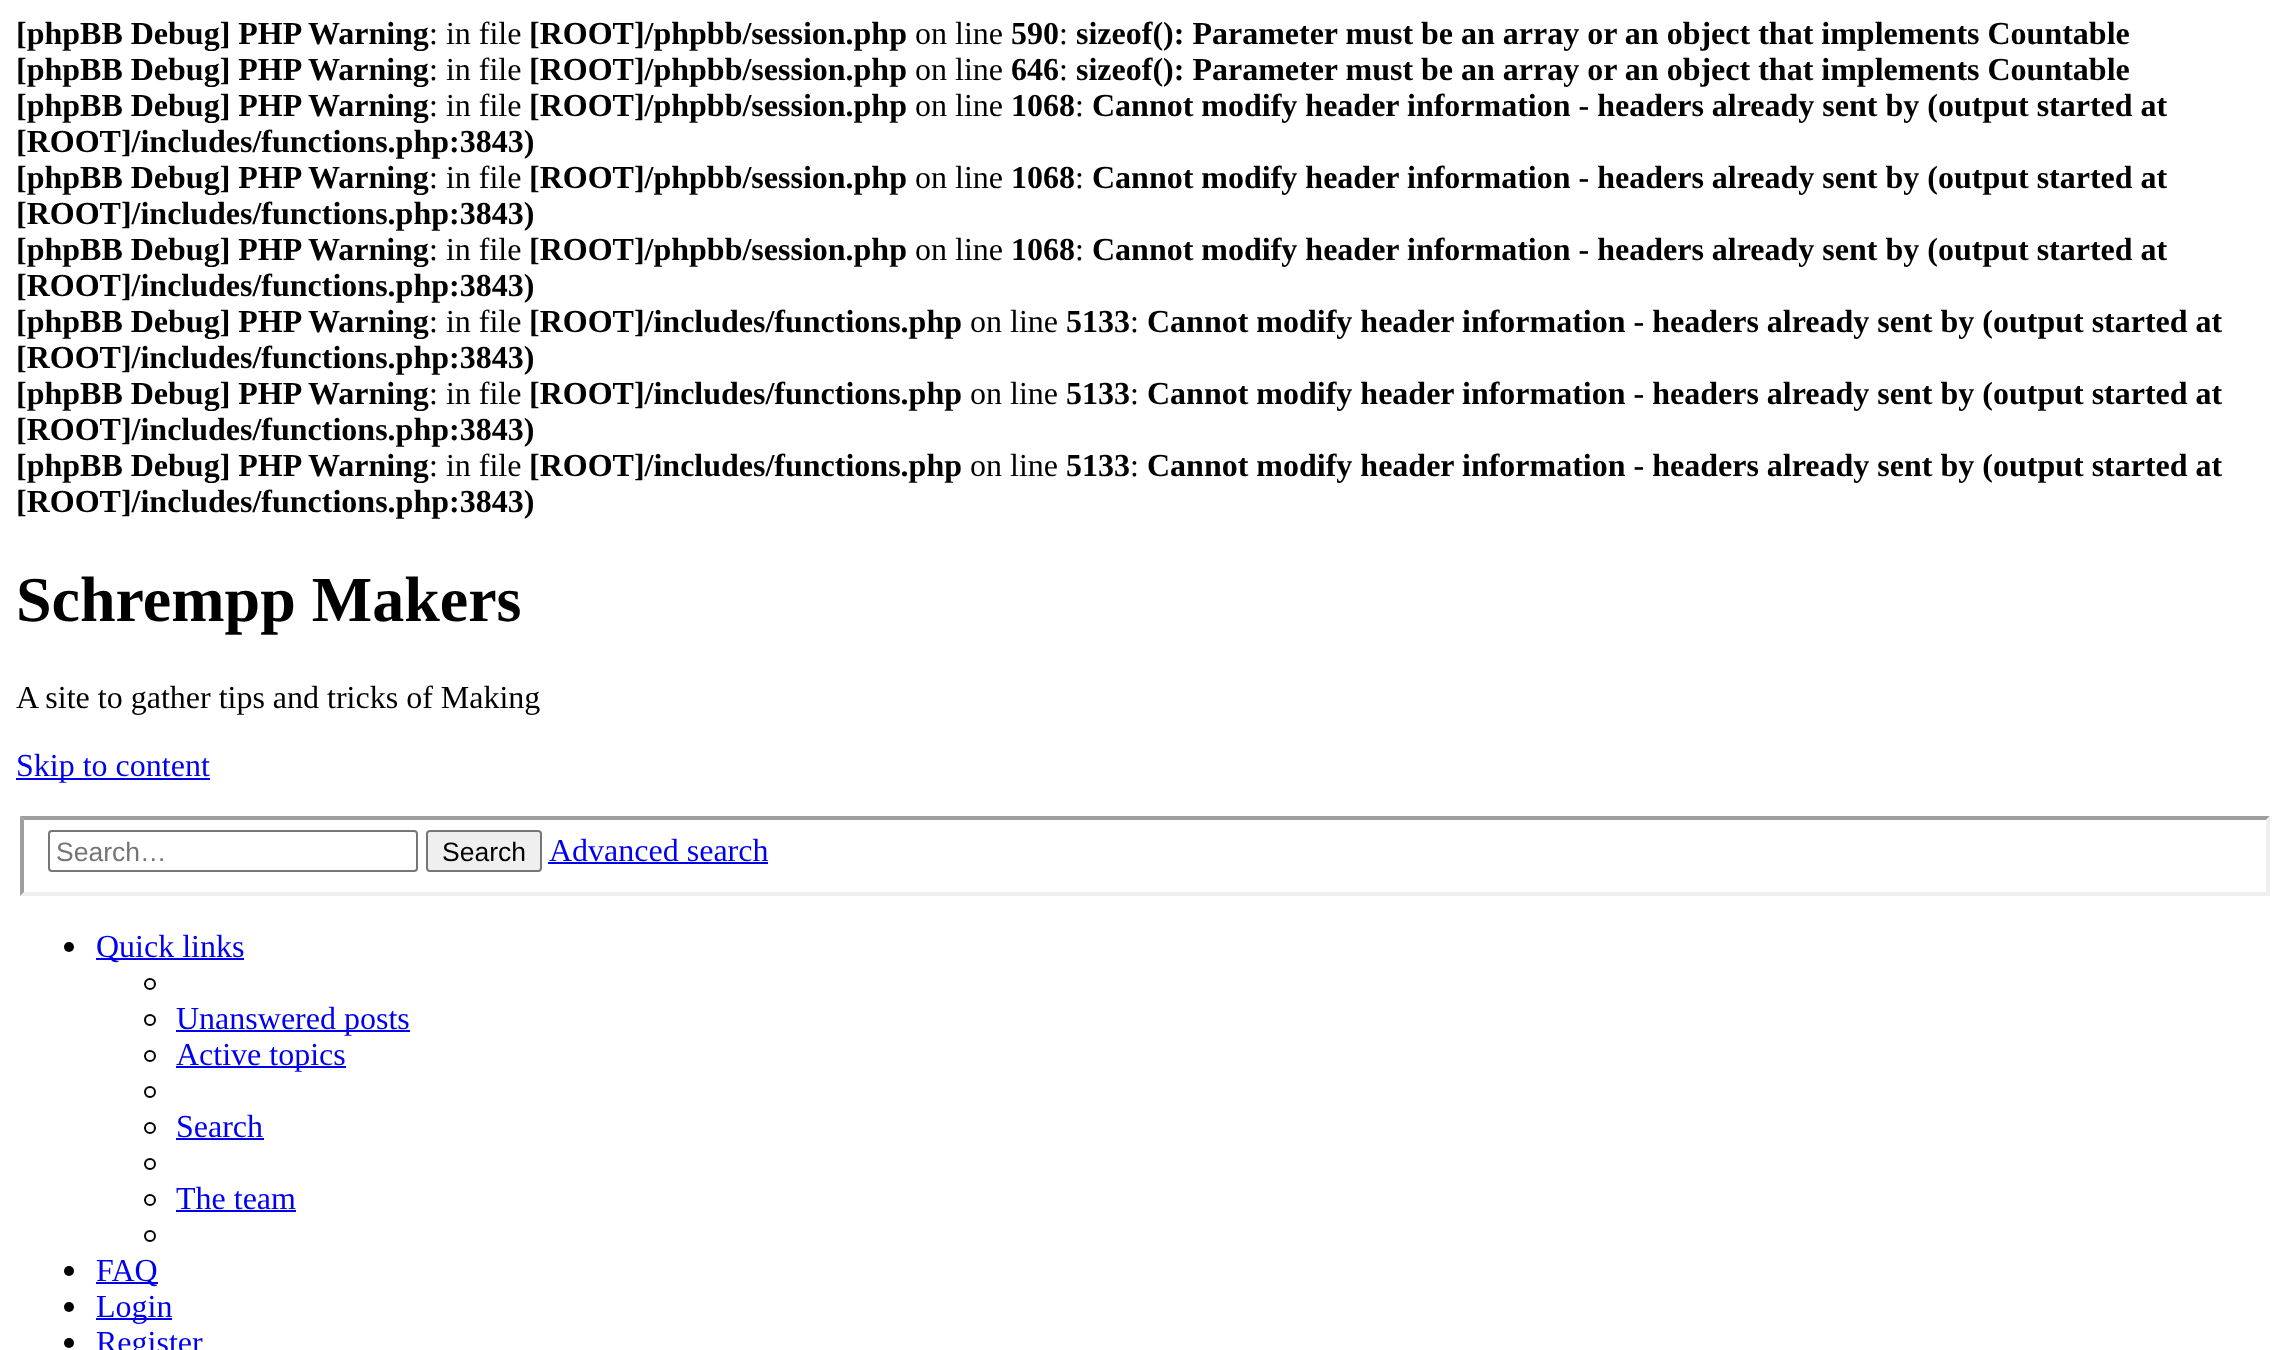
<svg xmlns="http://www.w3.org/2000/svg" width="2289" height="1350">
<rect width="100%" height="100%" fill="#fff"/>
<text x="16" y="44" style="font-family:Liberation Serif;font-size:32px;font-weight:bold;fill:#000">[phpBB Debug] PHP Warning</text>
<text x="429" y="44" style="font-family:Liberation Serif;font-size:32px;fill:#000">: in file</text>
<text x="529" y="44" style="font-family:Liberation Serif;font-size:32px;font-weight:bold;fill:#000">[ROOT]/phpbb/session.php</text>
<text x="915" y="44" style="font-family:Liberation Serif;font-size:32px;fill:#000">on line</text>
<text x="1011" y="44" style="font-family:Liberation Serif;font-size:32px;font-weight:bold;fill:#000">590</text>
<text x="1059" y="44" style="font-family:Liberation Serif;font-size:32px;fill:#000">:</text>
<text x="1076" y="44" style="font-family:Liberation Serif;font-size:32px;font-weight:bold;fill:#000">sizeof(): Parameter must be an array or an object that implements Countable</text>
<text x="16" y="80" style="font-family:Liberation Serif;font-size:32px;font-weight:bold;fill:#000">[phpBB Debug] PHP Warning</text>
<text x="429" y="80" style="font-family:Liberation Serif;font-size:32px;fill:#000">: in file</text>
<text x="529" y="80" style="font-family:Liberation Serif;font-size:32px;font-weight:bold;fill:#000">[ROOT]/phpbb/session.php</text>
<text x="915" y="80" style="font-family:Liberation Serif;font-size:32px;fill:#000">on line</text>
<text x="1011" y="80" style="font-family:Liberation Serif;font-size:32px;font-weight:bold;fill:#000">646</text>
<text x="1059" y="80" style="font-family:Liberation Serif;font-size:32px;fill:#000">:</text>
<text x="1076" y="80" style="font-family:Liberation Serif;font-size:32px;font-weight:bold;fill:#000">sizeof(): Parameter must be an array or an object that implements Countable</text>
<text x="16" y="116" style="font-family:Liberation Serif;font-size:32px;font-weight:bold;fill:#000">[phpBB Debug] PHP Warning</text>
<text x="429" y="116" style="font-family:Liberation Serif;font-size:32px;fill:#000">: in file</text>
<text x="529" y="116" style="font-family:Liberation Serif;font-size:32px;font-weight:bold;fill:#000">[ROOT]/phpbb/session.php</text>
<text x="915" y="116" style="font-family:Liberation Serif;font-size:32px;fill:#000">on line</text>
<text x="1011" y="116" style="font-family:Liberation Serif;font-size:32px;font-weight:bold;fill:#000">1068</text>
<text x="1075" y="116" style="font-family:Liberation Serif;font-size:32px;fill:#000">:</text>
<text x="1092" y="116" style="font-family:Liberation Serif;font-size:32px;font-weight:bold;fill:#000">Cannot modify header information - headers already sent by (output started at</text>
<text x="16" y="152" style="font-family:Liberation Serif;font-size:32px;font-weight:bold;fill:#000">[ROOT]/includes/functions.php:3843)</text>
<text x="16" y="188" style="font-family:Liberation Serif;font-size:32px;font-weight:bold;fill:#000">[phpBB Debug] PHP Warning</text>
<text x="429" y="188" style="font-family:Liberation Serif;font-size:32px;fill:#000">: in file</text>
<text x="529" y="188" style="font-family:Liberation Serif;font-size:32px;font-weight:bold;fill:#000">[ROOT]/phpbb/session.php</text>
<text x="915" y="188" style="font-family:Liberation Serif;font-size:32px;fill:#000">on line</text>
<text x="1011" y="188" style="font-family:Liberation Serif;font-size:32px;font-weight:bold;fill:#000">1068</text>
<text x="1075" y="188" style="font-family:Liberation Serif;font-size:32px;fill:#000">:</text>
<text x="1092" y="188" style="font-family:Liberation Serif;font-size:32px;font-weight:bold;fill:#000">Cannot modify header information - headers already sent by (output started at</text>
<text x="16" y="224" style="font-family:Liberation Serif;font-size:32px;font-weight:bold;fill:#000">[ROOT]/includes/functions.php:3843)</text>
<text x="16" y="260" style="font-family:Liberation Serif;font-size:32px;font-weight:bold;fill:#000">[phpBB Debug] PHP Warning</text>
<text x="429" y="260" style="font-family:Liberation Serif;font-size:32px;fill:#000">: in file</text>
<text x="529" y="260" style="font-family:Liberation Serif;font-size:32px;font-weight:bold;fill:#000">[ROOT]/phpbb/session.php</text>
<text x="915" y="260" style="font-family:Liberation Serif;font-size:32px;fill:#000">on line</text>
<text x="1011" y="260" style="font-family:Liberation Serif;font-size:32px;font-weight:bold;fill:#000">1068</text>
<text x="1075" y="260" style="font-family:Liberation Serif;font-size:32px;fill:#000">:</text>
<text x="1092" y="260" style="font-family:Liberation Serif;font-size:32px;font-weight:bold;fill:#000">Cannot modify header information - headers already sent by (output started at</text>
<text x="16" y="296" style="font-family:Liberation Serif;font-size:32px;font-weight:bold;fill:#000">[ROOT]/includes/functions.php:3843)</text>
<text x="16" y="332" style="font-family:Liberation Serif;font-size:32px;font-weight:bold;fill:#000">[phpBB Debug] PHP Warning</text>
<text x="429" y="332" style="font-family:Liberation Serif;font-size:32px;fill:#000">: in file</text>
<text x="529" y="332" style="font-family:Liberation Serif;font-size:32px;font-weight:bold;fill:#000">[ROOT]/includes/functions.php</text>
<text x="970" y="332" style="font-family:Liberation Serif;font-size:32px;fill:#000">on line</text>
<text x="1066" y="332" style="font-family:Liberation Serif;font-size:32px;font-weight:bold;fill:#000">5133</text>
<text x="1130" y="332" style="font-family:Liberation Serif;font-size:32px;fill:#000">:</text>
<text x="1147" y="332" style="font-family:Liberation Serif;font-size:32px;font-weight:bold;fill:#000">Cannot modify header information - headers already sent by (output started at</text>
<text x="16" y="368" style="font-family:Liberation Serif;font-size:32px;font-weight:bold;fill:#000">[ROOT]/includes/functions.php:3843)</text>
<text x="16" y="404" style="font-family:Liberation Serif;font-size:32px;font-weight:bold;fill:#000">[phpBB Debug] PHP Warning</text>
<text x="429" y="404" style="font-family:Liberation Serif;font-size:32px;fill:#000">: in file</text>
<text x="529" y="404" style="font-family:Liberation Serif;font-size:32px;font-weight:bold;fill:#000">[ROOT]/includes/functions.php</text>
<text x="970" y="404" style="font-family:Liberation Serif;font-size:32px;fill:#000">on line</text>
<text x="1066" y="404" style="font-family:Liberation Serif;font-size:32px;font-weight:bold;fill:#000">5133</text>
<text x="1130" y="404" style="font-family:Liberation Serif;font-size:32px;fill:#000">:</text>
<text x="1147" y="404" style="font-family:Liberation Serif;font-size:32px;font-weight:bold;fill:#000">Cannot modify header information - headers already sent by (output started at</text>
<text x="16" y="440" style="font-family:Liberation Serif;font-size:32px;font-weight:bold;fill:#000">[ROOT]/includes/functions.php:3843)</text>
<text x="16" y="476" style="font-family:Liberation Serif;font-size:32px;font-weight:bold;fill:#000">[phpBB Debug] PHP Warning</text>
<text x="429" y="476" style="font-family:Liberation Serif;font-size:32px;fill:#000">: in file</text>
<text x="529" y="476" style="font-family:Liberation Serif;font-size:32px;font-weight:bold;fill:#000">[ROOT]/includes/functions.php</text>
<text x="970" y="476" style="font-family:Liberation Serif;font-size:32px;fill:#000">on line</text>
<text x="1066" y="476" style="font-family:Liberation Serif;font-size:32px;font-weight:bold;fill:#000">5133</text>
<text x="1130" y="476" style="font-family:Liberation Serif;font-size:32px;fill:#000">:</text>
<text x="1147" y="476" style="font-family:Liberation Serif;font-size:32px;font-weight:bold;fill:#000">Cannot modify header information - headers already sent by (output started at</text>
<text x="16" y="512" style="font-family:Liberation Serif;font-size:32px;font-weight:bold;fill:#000">[ROOT]/includes/functions.php:3843)</text>
<text x="16" y="621" style="font-family:Liberation Serif;font-size:64px;font-weight:bold;fill:#000">Schrempp Makers</text>
<text x="16" y="708" style="font-family:Liberation Serif;font-size:32px;fill:#000">A site to gather tips and tricks of Making</text>
<rect x="16" y="778" width="194" height="2" fill="#00e"/>
<text x="16" y="776" style="font-family:Liberation Serif;font-size:32px;fill:#00e">Skip to content</text>
<path d="M20 816h2250l-4 4h-2242z" fill="#9f9f9f"/>
<path d="M2270 816v80l-4-4v-72z" fill="#efefef"/>
<path d="M2270 896h-2250l4-4h2242z" fill="#efefef"/>
<path d="M20 896v-80l4 4v72z" fill="#9f9f9f"/>
<rect x="49" y="831" width="368" height="40" rx="3" fill="none" stroke="#767676" stroke-width="2"/>
<text x="56" y="861" style="font-family:Liberation Sans;font-size:26.5px;fill:#757575">Search…</text>
<rect x="427" y="831" width="114" height="40" rx="3" fill="#efefef" stroke="#767676" stroke-width="2"/>
<text x="442" y="861" style="font-family:Liberation Sans;font-size:26.5px;fill:#000">Search</text>
<text x="549" y="861" style="font-family:Liberation Serif;font-size:32px;fill:#00e">Advanced search</text>
<rect x="548" y="862" width="220" height="2" fill="#00e"/>
<circle cx="69" cy="947" r="5" fill="#000"/>
<rect x="96" y="958" width="148" height="2" fill="#00e"/>
<text x="96" y="957" style="font-family:Liberation Serif;font-size:32px;fill:#00e">Quick links</text>
<circle cx="150" cy="984" r="5" fill="none" stroke="#000" stroke-width="2"/>
<circle cx="150" cy="1020" r="5" fill="none" stroke="#000" stroke-width="2"/>
<rect x="176" y="1030" width="234" height="2" fill="#00e"/>
<text x="176" y="1029" style="font-family:Liberation Serif;font-size:32px;fill:#00e">Unanswered posts</text>
<circle cx="150" cy="1056" r="5" fill="none" stroke="#000" stroke-width="2"/>
<rect x="176" y="1066" width="170" height="2" fill="#00e"/>
<text x="176" y="1065" style="font-family:Liberation Serif;font-size:32px;fill:#00e">Active topics</text>
<circle cx="150" cy="1092" r="5" fill="none" stroke="#000" stroke-width="2"/>
<circle cx="150" cy="1128" r="5" fill="none" stroke="#000" stroke-width="2"/>
<text x="176" y="1137" style="font-family:Liberation Serif;font-size:32px;fill:#00e">Search</text>
<rect x="176" y="1138" width="88" height="2" fill="#00e"/>
<circle cx="150" cy="1164" r="5" fill="none" stroke="#000" stroke-width="2"/>
<circle cx="150" cy="1200" r="5" fill="none" stroke="#000" stroke-width="2"/>
<text x="176" y="1209" style="font-family:Liberation Serif;font-size:32px;fill:#00e">The team</text>
<rect x="176" y="1210" width="120" height="2" fill="#00e"/>
<circle cx="150" cy="1236" r="5" fill="none" stroke="#000" stroke-width="2"/>
<circle cx="69" cy="1271" r="5" fill="#000"/>
<rect x="96" y="1282" width="62" height="2" fill="#00e"/>
<text x="96" y="1281" style="font-family:Liberation Serif;font-size:32px;fill:#00e">FAQ</text>
<circle cx="69" cy="1307" r="5" fill="#000"/>
<rect x="96" y="1318" width="76" height="2" fill="#00e"/>
<text x="96" y="1317" style="font-family:Liberation Serif;font-size:32px;fill:#00e">Login</text>
<circle cx="69" cy="1343" r="5" fill="#000"/>
<text x="96" y="1353" style="font-family:Liberation Serif;font-size:32px;fill:#00e">Register</text>
</svg>
